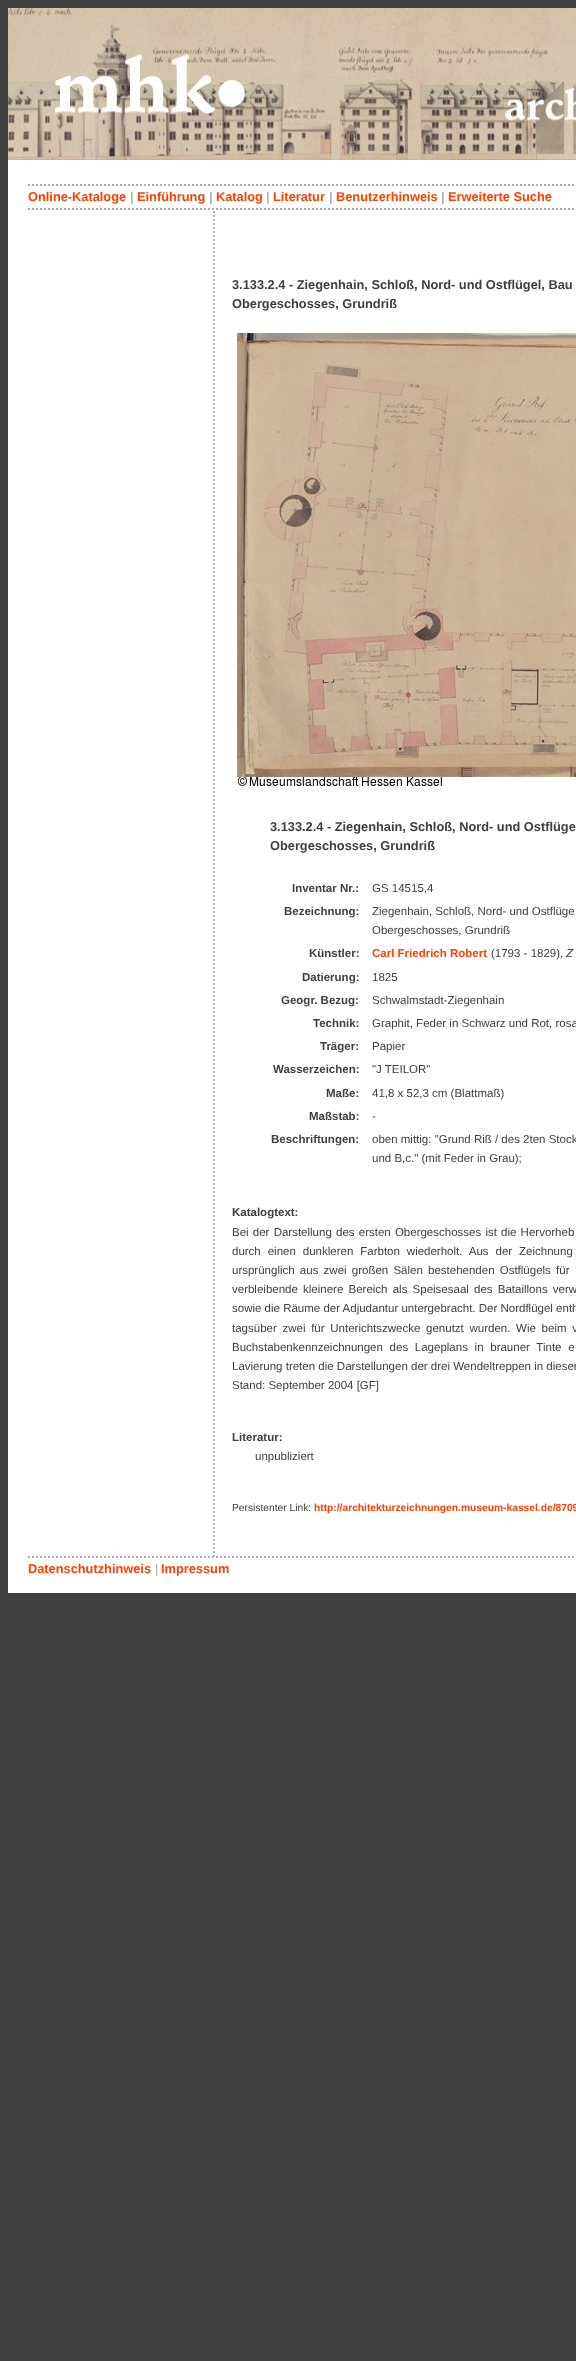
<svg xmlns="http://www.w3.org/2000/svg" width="576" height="2361">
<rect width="100%" height="100%" fill="#3f3f3f"/>
<rect x="8" y="160" width="568" height="1433" fill="#fff"/>
<image x="8" y="8" width="568" height="152" href="media/1.png"/>
<path d="M28 185h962" fill="none" stroke="#afafaf" stroke-width="2" stroke-dasharray="2 2"/>
<text x="28" y="201" style="font-family:Liberation Sans;font-size:12.8px;font-weight:bold;fill:#ff4000">Online-Kataloge</text>
<text x="130" y="201" style="font-family:Liberation Sans;font-size:12.8px;font-weight:bold;fill:#afafaf">|</text>
<text x="137" y="201" style="font-family:Liberation Sans;font-size:12.8px;font-weight:bold;fill:#ff4000">Einführung</text>
<text x="209" y="201" style="font-family:Liberation Sans;font-size:12.8px;font-weight:bold;fill:#afafaf">|</text>
<text x="216" y="201" style="font-family:Liberation Sans;font-size:12.8px;font-weight:bold;fill:#ff4000">Katalog</text>
<text x="266" y="201" style="font-family:Liberation Sans;font-size:12.8px;font-weight:bold;fill:#afafaf">|</text>
<text x="273" y="201" style="font-family:Liberation Sans;font-size:12.8px;font-weight:bold;fill:#ff4000">Literatur</text>
<text x="329" y="201" style="font-family:Liberation Sans;font-size:12.8px;font-weight:bold;fill:#afafaf">|</text>
<text x="336" y="201" style="font-family:Liberation Sans;font-size:12.8px;font-weight:bold;fill:#ff4000">Benutzerhinweis</text>
<text x="441" y="201" style="font-family:Liberation Sans;font-size:12.8px;font-weight:bold;fill:#afafaf">|</text>
<text x="448" y="201" style="font-family:Liberation Sans;font-size:12.8px;font-weight:bold;fill:#ff4000">Erweiterte Suche</text>
<path d="M28 209h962" fill="none" stroke="#afafaf" stroke-width="2" stroke-dasharray="2 2"/>
<path d="M214 211v1345" fill="none" stroke="#afafaf" stroke-width="2" stroke-dasharray="2 2"/>
<text x="232" y="289" style="font-family:Liberation Sans;font-size:12.8px;font-weight:bold;fill:#3f3f3f">3.133.2.4 - Ziegenhain, Schloß, Nord- und Ostflügel, Bau</text>
<text x="232" y="308" style="font-family:Liberation Sans;font-size:12.8px;font-weight:bold;fill:#3f3f3f">Obergeschosses, Grundriß</text>
<image x="237" y="333" width="339" height="456" href="media/2.png"/>
<text x="270" y="831" style="font-family:Liberation Sans;font-size:12.8px;font-weight:bold;fill:#3f3f3f">3.133.2.4 - Ziegenhain, Schloß, Nord- und Ostflüge</text>
<text x="270" y="850" style="font-family:Liberation Sans;font-size:12.8px;font-weight:bold;fill:#3f3f3f">Obergeschosses, Grundriß</text>
<text x="292" y="892" style="font-family:Liberation Sans;font-size:11.5px;font-weight:bold;fill:#3f3f3f">Inventar Nr.:</text>
<text x="372" y="892" style="font-family:Liberation Sans;font-size:11.5px;fill:#3f3f3f">GS 14515,4</text>
<text x="284" y="915" style="font-family:Liberation Sans;font-size:11.5px;font-weight:bold;fill:#3f3f3f">Bezeichnung:</text>
<text x="372" y="915" style="font-family:Liberation Sans;font-size:11.5px;fill:#3f3f3f">Ziegenhain, Schloß, Nord- und Ostflüge</text>
<text x="372" y="934" style="font-family:Liberation Sans;font-size:11.5px;fill:#3f3f3f">Obergeschosses, Grundriß</text>
<text x="309" y="957" style="font-family:Liberation Sans;font-size:11.5px;font-weight:bold;fill:#3f3f3f">Künstler:</text>
<text x="372" y="957" style="font-family:Liberation Sans;font-size:11.5px;font-weight:bold;fill:#ff4000">Carl Friedrich Robert</text>
<text x="491" y="957" style="font-family:Liberation Sans;font-size:11.5px;fill:#3f3f3f">(1793 - 1829),</text>
<text x="566" y="957" style="font-family:Liberation Sans;font-size:11.5px;font-style:italic;fill:#3f3f3f">Z</text>
<text x="302" y="981" style="font-family:Liberation Sans;font-size:11.5px;font-weight:bold;fill:#3f3f3f">Datierung:</text>
<text x="372" y="981" style="font-family:Liberation Sans;font-size:11.5px;fill:#3f3f3f">1825</text>
<text x="281" y="1004" style="font-family:Liberation Sans;font-size:11.5px;font-weight:bold;fill:#3f3f3f">Geogr. Bezug:</text>
<text x="372" y="1004" style="font-family:Liberation Sans;font-size:11.5px;fill:#3f3f3f">Schwalmstadt-Ziegenhain</text>
<text x="313" y="1027" style="font-family:Liberation Sans;font-size:11.5px;font-weight:bold;fill:#3f3f3f">Technik:</text>
<text x="372" y="1027" style="font-family:Liberation Sans;font-size:11.5px;fill:#3f3f3f">Graphit, Feder in Schwarz und Rot, rosa</text>
<text x="320" y="1050" style="font-family:Liberation Sans;font-size:11.5px;font-weight:bold;fill:#3f3f3f">Träger:</text>
<text x="372" y="1050" style="font-family:Liberation Sans;font-size:11.5px;fill:#3f3f3f">Papier</text>
<text x="273" y="1073" style="font-family:Liberation Sans;font-size:11.5px;font-weight:bold;fill:#3f3f3f">Wasserzeichen:</text>
<text x="372" y="1073" style="font-family:Liberation Sans;font-size:11.5px;fill:#3f3f3f">"J TEILOR"</text>
<text x="326" y="1097" style="font-family:Liberation Sans;font-size:11.5px;font-weight:bold;fill:#3f3f3f">Maße:</text>
<text x="372" y="1097" style="font-family:Liberation Sans;font-size:11.5px;fill:#3f3f3f">41,8 x 52,3 cm (Blattmaß)</text>
<text x="309" y="1120" style="font-family:Liberation Sans;font-size:11.5px;font-weight:bold;fill:#3f3f3f">Maßstab:</text>
<text x="372" y="1120" style="font-family:Liberation Sans;font-size:11.5px;fill:#3f3f3f">-</text>
<text x="271" y="1143" style="font-family:Liberation Sans;font-size:11.5px;font-weight:bold;fill:#3f3f3f">Beschriftungen:</text>
<text x="372" y="1143" style="font-family:Liberation Sans;font-size:11.5px;fill:#3f3f3f">oben mittig: "Grund Riß / des 2ten Stock</text>
<text x="372" y="1162" style="font-family:Liberation Sans;font-size:11.5px;fill:#3f3f3f">und B,c." (mit Feder in Grau);</text>
<text x="232" y="1216" style="font-family:Liberation Sans;font-size:11.5px;font-weight:bold;fill:#3f3f3f">Katalogtext:</text>
<text x="232" y="1236" word-spacing="1" style="font-family:Liberation Sans;font-size:11.5px;fill:#3f3f3f">Bei der Darstellung des ersten Obergeschosses ist die Hervorheb</text>
<text x="232" y="1255" word-spacing="3.75" style="font-family:Liberation Sans;font-size:11.5px;fill:#3f3f3f">durch einen dunkleren Farbton wiederholt. Aus der Zeichnung</text>
<text x="232" y="1274" word-spacing="2" style="font-family:Liberation Sans;font-size:11.5px;fill:#3f3f3f">ursprünglich aus zwei großen Sälen bestehenden Ostflügels für</text>
<text x="232" y="1293" word-spacing="2" style="font-family:Liberation Sans;font-size:11.5px;fill:#3f3f3f">verbleibende kleinere Bereich als Speisesaal des Bataillons verw</text>
<text x="232" y="1312" style="font-family:Liberation Sans;font-size:11.5px;fill:#3f3f3f">sowie die Räume der Adjudantur untergebracht. Der Nordflügel enth</text>
<text x="232" y="1332" word-spacing="2.5" style="font-family:Liberation Sans;font-size:11.5px;fill:#3f3f3f">tagsüber zwei für Unterichtszwecke genutzt wurden. Wie beim v</text>
<text x="232" y="1351" word-spacing="3.5" style="font-family:Liberation Sans;font-size:11.5px;fill:#3f3f3f">Buchstabenkennzeichnungen des Lageplans in brauner Tinte e</text>
<text x="232" y="1370" style="font-family:Liberation Sans;font-size:11.5px;fill:#3f3f3f">Lavierung treten die Darstellungen der drei Wendeltreppen in dieser</text>
<text x="232" y="1389" style="font-family:Liberation Sans;font-size:11.5px;fill:#3f3f3f">Stand: September 2004 [GF]</text>
<text x="232" y="1441" style="font-family:Liberation Sans;font-size:11.5px;font-weight:bold;fill:#3f3f3f">Literatur:</text>
<text x="255" y="1460" style="font-family:Liberation Sans;font-size:11.5px;fill:#3f3f3f">unpubliziert</text>
<text x="232" y="1511" style="font-family:Liberation Sans;font-size:10.25px;fill:#3f3f3f">Persistenter Link:</text>
<text x="314" y="1511" style="font-family:Liberation Sans;font-size:10.25px;font-weight:bold;fill:#ff4000">http://architekturzeichnungen.museum-kassel.de/8709</text>
<path d="M28 1557h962" fill="none" stroke="#afafaf" stroke-width="2" stroke-dasharray="2 2"/>
<text x="28" y="1573" style="font-family:Liberation Sans;font-size:12.8px;font-weight:bold;fill:#ff4000">Datenschutzhinweis</text>
<text x="155" y="1573" style="font-family:Liberation Sans;font-size:12.8px;fill:#afafaf">|</text>
<text x="161" y="1573" style="font-family:Liberation Sans;font-size:12.8px;font-weight:bold;fill:#ff4000">Impressum</text>
</svg>
